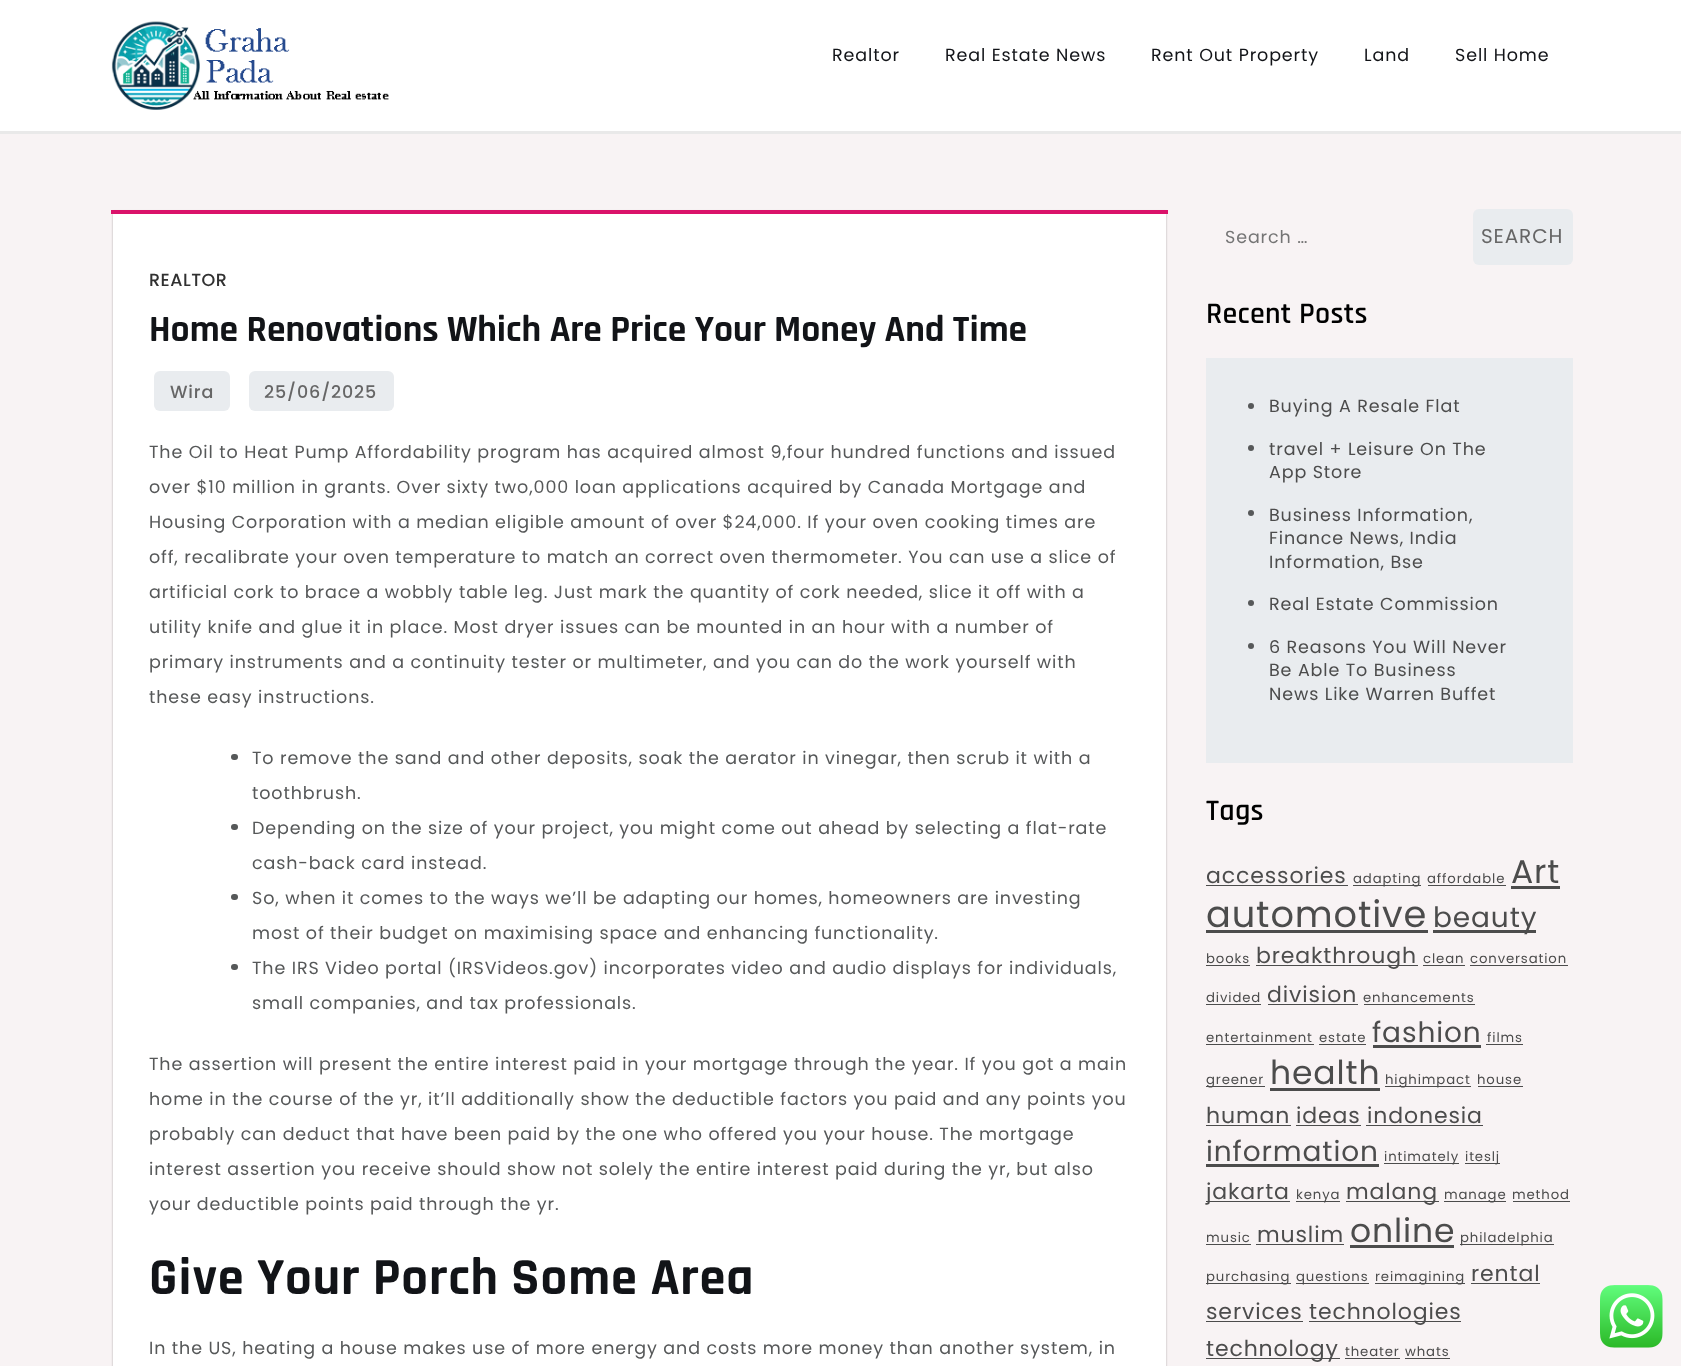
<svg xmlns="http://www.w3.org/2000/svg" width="1681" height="1366">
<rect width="100%" height="100%" fill="#f8f3f4"/>
<rect width="1681" height="131" fill="#fff"/>
<rect y="131" width="1681" height="3" fill="#e9e9e9"/>
<image x="111" y="21" width="278" height="89" href="media/1.png"/>
<text x="832" y="61" style="font-family:Poppins;font-size:17.5px;letter-spacing:0.88px;fill:#121418">Realtor</text>
<text x="945" y="61" style="font-family:Poppins;font-size:17.5px;letter-spacing:0.88px;fill:#121418">Real Estate News</text>
<text x="1151" y="61" style="font-family:Poppins;font-size:17.5px;letter-spacing:0.88px;fill:#121418">Rent Out Property</text>
<text x="1364" y="61" style="font-family:Poppins;font-size:17.5px;letter-spacing:0.88px;fill:#121418">Land</text>
<text x="1455" y="61" style="font-family:Poppins;font-size:17.5px;letter-spacing:0.88px;fill:#121418">Sell Home</text>
<rect x="113" y="214" width="1053" height="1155" fill="#0000002e" filter="blur(1px)"/>
<rect x="113" y="211" width="1053" height="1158" fill="#0000001a" filter="blur(1px)"/>
<rect x="113" y="214" width="1053" height="1152" fill="#fff"/>
<rect x="111" y="210" width="1057" height="4" fill="#da126a"/>
<text x="149" y="286" style="font-family:Poppins;font-size:17.5px;font-weight:500;letter-spacing:0.5px;fill:#313131">REALTOR</text>
<text x="149" y="341" style="font-family:Rajdhani;font-size:37.5px;font-weight:bold;fill:#121418">Home Renovations Which Are Price Your Money And Time</text>
<rect x="154" y="371" width="76" height="40" rx="6" fill="#e9ecef"/>
<text x="170" y="398" style="font-family:Poppins;font-size:17.5px;font-weight:500;letter-spacing:0.88px;fill:#666">Wira</text>
<rect x="249" y="371" width="145" height="40" rx="6" fill="#e9ecef"/>
<text x="264" y="398" style="font-family:Poppins;font-size:17.5px;font-weight:500;letter-spacing:0.88px;fill:#666">25/06/2025</text>
<text x="149" y="458" style="font-family:Poppins;font-size:17.5px;letter-spacing:0.88px;fill:#565859">The Oil to Heat Pump Affordability program has acquired almost 9,four hundred functions and issued</text>
<text x="149" y="493" style="font-family:Poppins;font-size:17.5px;letter-spacing:0.88px;fill:#565859">over $10 million in grants. Over sixty two,000 loan applications acquired by Canada Mortgage and</text>
<text x="149" y="528" style="font-family:Poppins;font-size:17.5px;letter-spacing:0.88px;fill:#565859">Housing Corporation with a median eligible amount of over $24,000. If your oven cooking times are</text>
<text x="149" y="563" style="font-family:Poppins;font-size:17.5px;letter-spacing:0.88px;fill:#565859">off, recalibrate your oven temperature to match an correct oven thermometer. You can use a slice of</text>
<text x="149" y="598" style="font-family:Poppins;font-size:17.5px;letter-spacing:0.88px;fill:#565859">artificial cork to brace a wobbly table leg. Just mark the quantity of cork needed, slice it off with a</text>
<text x="149" y="633" style="font-family:Poppins;font-size:17.5px;letter-spacing:0.88px;fill:#565859">utility knife and glue it in place. Most dryer issues can be mounted in an hour with a number of</text>
<text x="149" y="668" style="font-family:Poppins;font-size:17.5px;letter-spacing:0.88px;fill:#565859">primary instruments and a continuity tester or multimeter, and you can do the work yourself with</text>
<text x="149" y="703" style="font-family:Poppins;font-size:17.5px;letter-spacing:0.88px;fill:#565859">these easy instructions.</text>
<rect x="231" y="754" width="7" height="6" rx="3" fill="#565859"/>
<text x="252" y="764" style="font-family:Poppins;font-size:17.5px;letter-spacing:0.88px;fill:#565859">To remove the sand and other deposits, soak the aerator in vinegar, then scrub it with a</text>
<text x="252" y="799" style="font-family:Poppins;font-size:17.5px;letter-spacing:0.88px;fill:#565859">toothbrush.</text>
<rect x="231" y="824" width="7" height="6" rx="3" fill="#565859"/>
<text x="252" y="834" style="font-family:Poppins;font-size:17.5px;letter-spacing:0.88px;fill:#565859">Depending on the size of your project, you might come out ahead by selecting a flat-rate</text>
<text x="252" y="869" style="font-family:Poppins;font-size:17.5px;letter-spacing:0.88px;fill:#565859">cash-back card instead.</text>
<rect x="231" y="894" width="7" height="6" rx="3" fill="#565859"/>
<text x="252" y="904" style="font-family:Poppins;font-size:17.5px;letter-spacing:0.88px;fill:#565859">So, when it comes to the ways we’ll be adapting our homes, homeowners are investing</text>
<text x="252" y="939" style="font-family:Poppins;font-size:17.5px;letter-spacing:0.88px;fill:#565859">most of their budget on maximising space and enhancing functionality.</text>
<rect x="231" y="964" width="7" height="6" rx="3" fill="#565859"/>
<text x="252" y="974" style="font-family:Poppins;font-size:17.5px;letter-spacing:0.88px;fill:#565859">The IRS Video portal (IRSVideos.gov) incorporates video and audio displays for individuals,</text>
<text x="252" y="1009" style="font-family:Poppins;font-size:17.5px;letter-spacing:0.88px;fill:#565859">small companies, and tax professionals.</text>
<text x="149" y="1070" style="font-family:Poppins;font-size:17.5px;letter-spacing:0.88px;fill:#565859">The assertion will present the entire interest paid in your mortgage through the year. If you got a main</text>
<text x="149" y="1105" style="font-family:Poppins;font-size:17.5px;letter-spacing:0.88px;fill:#565859">home in the course of the yr, it’ll additionally show the deductible factors you paid and any points you</text>
<text x="149" y="1140" style="font-family:Poppins;font-size:17.5px;letter-spacing:0.88px;fill:#565859">probably can deduct that have been paid by the one who offered you your house. The mortgage</text>
<text x="149" y="1175" style="font-family:Poppins;font-size:17.5px;letter-spacing:0.88px;fill:#565859">interest assertion you receive should show not solely the entire interest paid during the yr, but also</text>
<text x="149" y="1210" style="font-family:Poppins;font-size:17.5px;letter-spacing:0.88px;fill:#565859">your deductible points paid through the yr.</text>
<text x="149" y="1294" style="font-family:Rajdhani;font-size:52.5px;font-weight:bold;letter-spacing:0.88px;fill:#121418">Give Your Porch Some Area</text>
<text x="149" y="1354" style="font-family:Poppins;font-size:17.5px;letter-spacing:0.88px;fill:#565859">In the US, heating a house makes use of more energy and costs more money than another system, in</text>
<text x="1225" y="243" style="font-family:Poppins;font-size:17.5px;letter-spacing:0.88px;fill:#757575">Search …</text>
<rect x="1473" y="209" width="100" height="56" rx="6" fill="#e9ecef"/>
<text x="1481" y="243" style="font-family:Poppins;font-size:20px;letter-spacing:0.88px;fill:#666">SEARCH</text>
<text x="1206" y="323" style="font-family:Rajdhani;font-size:30px;font-weight:600;letter-spacing:0.25px;fill:#000">Recent Posts</text>
<rect x="1206" y="358" width="367" height="405" fill="#e9ecef"/>
<circle cx="1251" cy="406" r="3" fill="#565859"/>
<text x="1269" y="412" style="font-family:Poppins;font-size:17.5px;letter-spacing:0.88px;fill:#4c4c4c">Buying A Resale Flat</text>
<circle cx="1251" cy="448" r="3" fill="#565859"/>
<text x="1269" y="455" style="font-family:Poppins;font-size:17.5px;letter-spacing:0.88px;fill:#4c4c4c">travel + Leisure On The</text>
<text x="1269" y="478" style="font-family:Poppins;font-size:17.5px;letter-spacing:0.88px;fill:#4c4c4c">App Store</text>
<circle cx="1251" cy="513" r="3" fill="#565859"/>
<text x="1269" y="521" style="font-family:Poppins;font-size:17.5px;letter-spacing:0.88px;fill:#4c4c4c">Business Information,</text>
<text x="1269" y="544" style="font-family:Poppins;font-size:17.5px;letter-spacing:0.88px;fill:#4c4c4c">Finance News, India</text>
<text x="1269" y="568" style="font-family:Poppins;font-size:17.5px;letter-spacing:0.88px;fill:#4c4c4c">Information, Bse</text>
<circle cx="1251" cy="603" r="3" fill="#565859"/>
<text x="1269" y="610" style="font-family:Poppins;font-size:17.5px;letter-spacing:0.88px;fill:#4c4c4c">Real Estate Commission</text>
<circle cx="1251" cy="646" r="3" fill="#565859"/>
<text x="1269" y="653" style="font-family:Poppins;font-size:17.5px;letter-spacing:0.88px;fill:#4c4c4c">6 Reasons You Will Never</text>
<text x="1269" y="676" style="font-family:Poppins;font-size:17.5px;letter-spacing:0.88px;fill:#4c4c4c">Be Able To Business</text>
<text x="1269" y="700" style="font-family:Poppins;font-size:17.5px;letter-spacing:0.88px;fill:#4c4c4c">News Like Warren Buffet</text>
<text x="1206" y="820" style="font-family:Rajdhani;font-size:30px;font-weight:600;letter-spacing:0.25px;fill:#000">Tags</text>
<text x="1206" y="883" style="font-family:Poppins;font-size:22px;letter-spacing:0.88px;fill:#4c4c4c">accessories</text>
<rect x="1206" y="885" width="142" height="1" fill="#4c4c4c"/>
<rect x="1353" y="885" width="68" height="1" fill="#4c4c4c"/>
<text x="1353" y="883" style="font-family:Poppins;font-size:13.25px;letter-spacing:0.88px;fill:#4c4c4c">adapting</text>
<text x="1427" y="883" style="font-family:Poppins;font-size:13.25px;letter-spacing:0.88px;fill:#4c4c4c">affordable</text>
<rect x="1428" y="885" width="78" height="1" fill="#4c4c4c"/>
<text x="1511" y="883" style="font-family:Poppins;font-size:33px;letter-spacing:0.88px;fill:#4c4c4c">Art</text>
<rect x="1511" y="886" width="49" height="3" fill="#4c4c4c"/>
<text x="1206" y="927" style="font-family:Poppins;font-size:36.75px;letter-spacing:0.88px;fill:#4c4c4c">automotive</text>
<rect x="1206" y="930" width="222" height="3" fill="#4c4c4c"/>
<rect x="1433" y="930" width="103" height="3" fill="#4c4c4c"/>
<text x="1433" y="927" style="font-family:Poppins;font-size:28px;letter-spacing:0.88px;fill:#4c4c4c">beauty</text>
<text x="1206" y="963" style="font-family:Poppins;font-size:13.25px;letter-spacing:0.88px;fill:#4c4c4c">books</text>
<rect x="1206" y="965" width="44" height="1" fill="#4c4c4c"/>
<rect x="1256" y="965" width="162" height="1" fill="#4c4c4c"/>
<text x="1256" y="963" style="font-family:Poppins;font-size:22px;letter-spacing:0.88px;fill:#4c4c4c">breakthrough</text>
<text x="1423" y="963" style="font-family:Poppins;font-size:13.25px;letter-spacing:0.88px;fill:#4c4c4c">clean</text>
<rect x="1423" y="965" width="42" height="1" fill="#4c4c4c"/>
<text x="1470" y="963" style="font-family:Poppins;font-size:13.25px;letter-spacing:0.88px;fill:#4c4c4c">conversation</text>
<rect x="1470" y="965" width="98" height="1" fill="#4c4c4c"/>
<text x="1206" y="1002" style="font-family:Poppins;font-size:13.25px;letter-spacing:0.88px;fill:#4c4c4c">divided</text>
<rect x="1206" y="1004" width="55" height="1" fill="#4c4c4c"/>
<text x="1267" y="1002" style="font-family:Poppins;font-size:22px;letter-spacing:0.88px;fill:#4c4c4c">division</text>
<rect x="1268" y="1004" width="90" height="1" fill="#4c4c4c"/>
<text x="1363" y="1002" style="font-family:Poppins;font-size:13.25px;letter-spacing:0.88px;fill:#4c4c4c">enhancements</text>
<rect x="1364" y="1004" width="111" height="1" fill="#4c4c4c"/>
<text x="1206" y="1042" style="font-family:Poppins;font-size:13.25px;letter-spacing:0.88px;fill:#4c4c4c">entertainment</text>
<rect x="1206" y="1044" width="108" height="1" fill="#4c4c4c"/>
<text x="1319" y="1042" style="font-family:Poppins;font-size:13.25px;letter-spacing:0.88px;fill:#4c4c4c">estate</text>
<rect x="1319" y="1044" width="47" height="1" fill="#4c4c4c"/>
<text x="1372" y="1042" style="font-family:Poppins;font-size:28px;letter-spacing:0.88px;fill:#4c4c4c">fashion</text>
<rect x="1373" y="1045" width="108" height="3" fill="#4c4c4c"/>
<text x="1487" y="1042" style="font-family:Poppins;font-size:13.25px;letter-spacing:0.88px;fill:#4c4c4c">films</text>
<rect x="1486" y="1044" width="37" height="1" fill="#4c4c4c"/>
<rect x="1206" y="1086" width="59" height="1" fill="#4c4c4c"/>
<text x="1206" y="1084" style="font-family:Poppins;font-size:13.25px;letter-spacing:0.88px;fill:#4c4c4c">greener</text>
<text x="1270" y="1084" style="font-family:Poppins;font-size:33px;letter-spacing:0.88px;fill:#4c4c4c">health</text>
<rect x="1270" y="1088" width="110" height="3" fill="#4c4c4c"/>
<rect x="1385" y="1086" width="86" height="1" fill="#4c4c4c"/>
<text x="1385" y="1084" style="font-family:Poppins;font-size:13.25px;letter-spacing:0.88px;fill:#4c4c4c">highimpact</text>
<text x="1477" y="1084" style="font-family:Poppins;font-size:13.25px;letter-spacing:0.88px;fill:#4c4c4c">house</text>
<rect x="1478" y="1086" width="45" height="1" fill="#4c4c4c"/>
<text x="1206" y="1123" style="font-family:Poppins;font-size:22px;letter-spacing:0.88px;fill:#4c4c4c">human</text>
<rect x="1206" y="1125" width="85" height="1" fill="#4c4c4c"/>
<text x="1296" y="1123" style="font-family:Poppins;font-size:22px;letter-spacing:0.88px;fill:#4c4c4c">ideas</text>
<rect x="1296" y="1125" width="65" height="1" fill="#4c4c4c"/>
<text x="1367" y="1123" style="font-family:Poppins;font-size:22px;letter-spacing:0.88px;fill:#4c4c4c">indonesia</text>
<rect x="1366" y="1125" width="117" height="1" fill="#4c4c4c"/>
<text x="1206" y="1161" style="font-family:Poppins;font-size:28px;letter-spacing:0.88px;fill:#4c4c4c">information</text>
<rect x="1206" y="1164" width="173" height="3" fill="#4c4c4c"/>
<rect x="1384" y="1163" width="75" height="1" fill="#4c4c4c"/>
<text x="1384" y="1161" style="font-family:Poppins;font-size:13.25px;letter-spacing:0.88px;fill:#4c4c4c">intimately</text>
<rect x="1465" y="1163" width="35" height="1" fill="#4c4c4c"/>
<text x="1465" y="1161" style="font-family:Poppins;font-size:13.25px;letter-spacing:0.88px;fill:#4c4c4c">iteslj</text>
<rect x="1206" y="1201" width="84" height="1" fill="#4c4c4c"/>
<text x="1206" y="1199" style="font-family:Poppins;font-size:22px;letter-spacing:0.88px;fill:#4c4c4c">jakarta</text>
<rect x="1296" y="1201" width="44" height="1" fill="#4c4c4c"/>
<text x="1296" y="1199" style="font-family:Poppins;font-size:13.25px;letter-spacing:0.88px;fill:#4c4c4c">kenya</text>
<rect x="1346" y="1201" width="93" height="1" fill="#4c4c4c"/>
<text x="1346" y="1199" style="font-family:Poppins;font-size:22px;letter-spacing:0.88px;fill:#4c4c4c">malang</text>
<rect x="1444" y="1201" width="62" height="1" fill="#4c4c4c"/>
<text x="1444" y="1199" style="font-family:Poppins;font-size:13.25px;letter-spacing:0.88px;fill:#4c4c4c">manage</text>
<text x="1512" y="1199" style="font-family:Poppins;font-size:13.25px;letter-spacing:0.88px;fill:#4c4c4c">method</text>
<rect x="1513" y="1201" width="57" height="1" fill="#4c4c4c"/>
<text x="1206" y="1242" style="font-family:Poppins;font-size:13.25px;letter-spacing:0.88px;fill:#4c4c4c">music</text>
<rect x="1206" y="1244" width="45" height="1" fill="#4c4c4c"/>
<text x="1257" y="1242" style="font-family:Poppins;font-size:22px;letter-spacing:0.88px;fill:#4c4c4c">muslim</text>
<rect x="1256" y="1244" width="88" height="1" fill="#4c4c4c"/>
<text x="1350" y="1242" style="font-family:Poppins;font-size:33px;letter-spacing:0.88px;fill:#4c4c4c">online</text>
<rect x="1350" y="1245" width="104" height="3" fill="#4c4c4c"/>
<rect x="1460" y="1244" width="94" height="1" fill="#4c4c4c"/>
<text x="1460" y="1242" style="font-family:Poppins;font-size:13.25px;letter-spacing:0.88px;fill:#4c4c4c">philadelphia</text>
<rect x="1206" y="1283" width="85" height="1" fill="#4c4c4c"/>
<text x="1206" y="1281" style="font-family:Poppins;font-size:13.25px;letter-spacing:0.88px;fill:#4c4c4c">purchasing</text>
<rect x="1296" y="1283" width="73" height="1" fill="#4c4c4c"/>
<text x="1296" y="1281" style="font-family:Poppins;font-size:13.25px;letter-spacing:0.88px;fill:#4c4c4c">questions</text>
<rect x="1375" y="1283" width="90" height="1" fill="#4c4c4c"/>
<text x="1375" y="1281" style="font-family:Poppins;font-size:13.25px;letter-spacing:0.88px;fill:#4c4c4c">reimagining</text>
<text x="1471" y="1281" style="font-family:Poppins;font-size:22px;letter-spacing:0.88px;fill:#4c4c4c">rental</text>
<rect x="1471" y="1283" width="69" height="1" fill="#4c4c4c"/>
<text x="1206" y="1319" style="font-family:Poppins;font-size:22px;letter-spacing:0.88px;fill:#4c4c4c">services</text>
<rect x="1206" y="1321" width="97" height="1" fill="#4c4c4c"/>
<rect x="1309" y="1321" width="152" height="1" fill="#4c4c4c"/>
<text x="1309" y="1319" style="font-family:Poppins;font-size:22px;letter-spacing:0.88px;fill:#4c4c4c">technologies</text>
<rect x="1206" y="1358" width="134" height="1" fill="#4c4c4c"/>
<text x="1206" y="1356" style="font-family:Poppins;font-size:22px;letter-spacing:0.88px;fill:#4c4c4c">technology</text>
<text x="1345" y="1356" style="font-family:Poppins;font-size:13.25px;letter-spacing:0.88px;fill:#4c4c4c">theater</text>
<rect x="1345" y="1358" width="55" height="1" fill="#4c4c4c"/>
<text x="1405" y="1356" style="font-family:Poppins;font-size:13.25px;letter-spacing:0.88px;fill:#4c4c4c">whats</text>
<rect x="1405" y="1358" width="45" height="1" fill="#4c4c4c"/>
<image x="1600" y="1285" width="63" height="63" href="media/2.png"/>
</svg>
